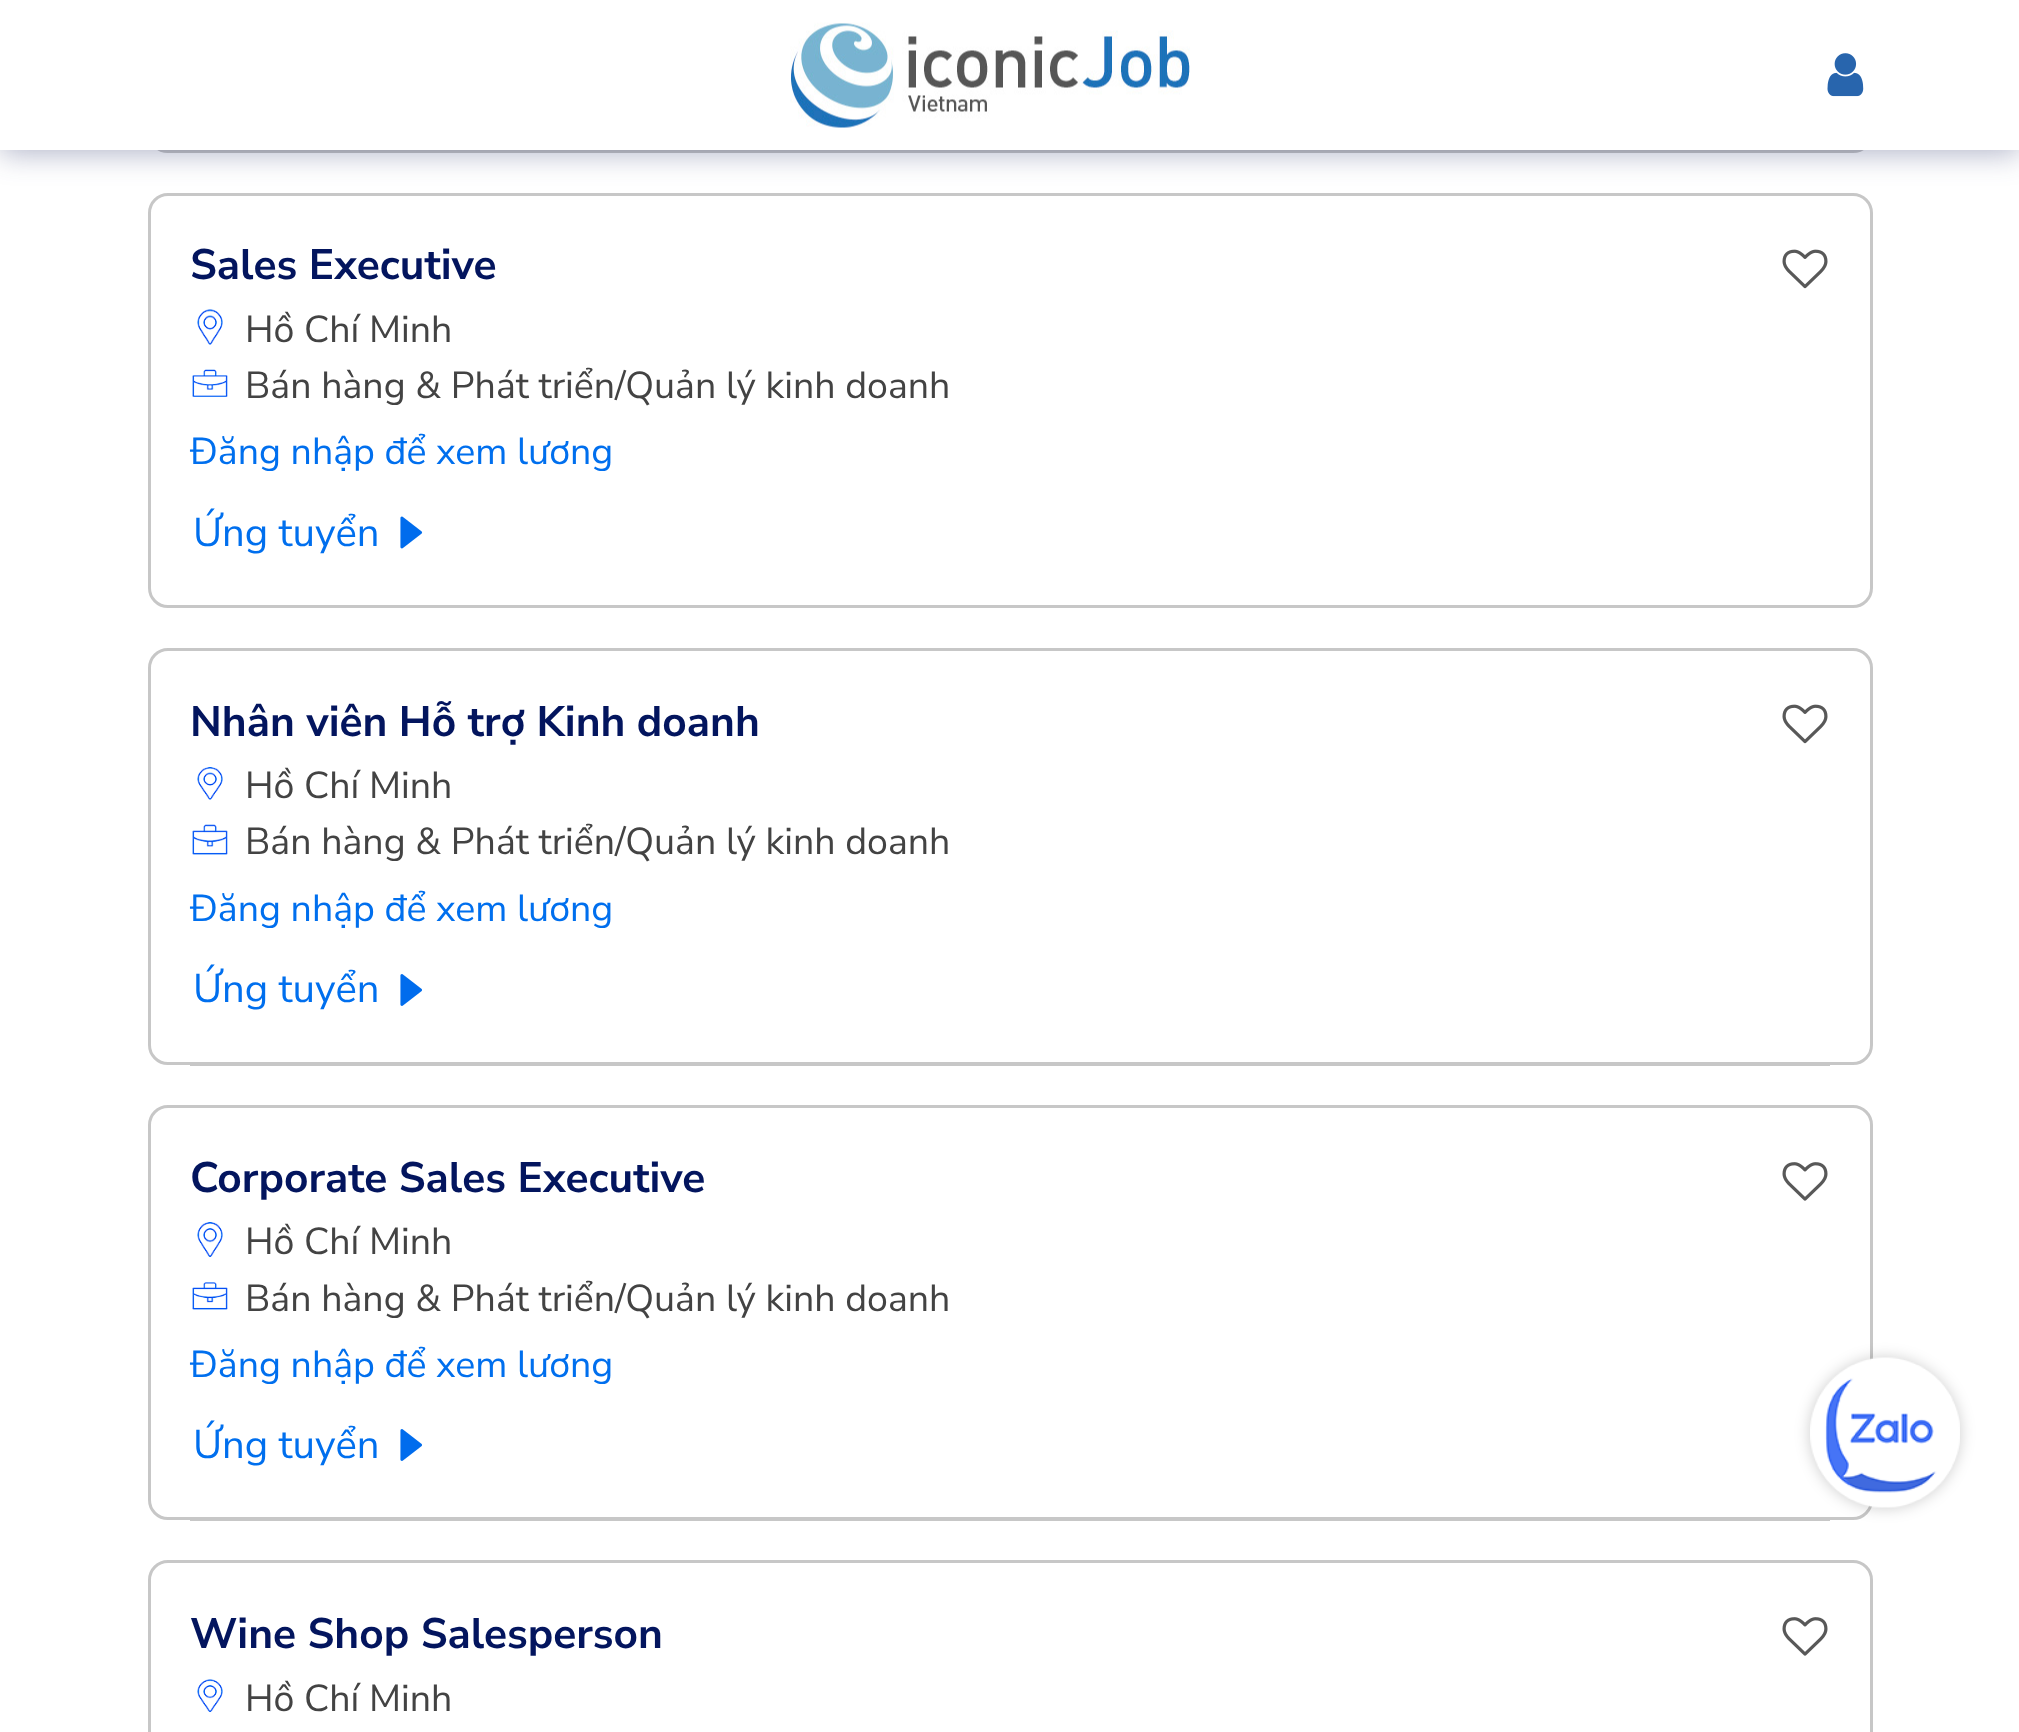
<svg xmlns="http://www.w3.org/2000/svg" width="2019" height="1732">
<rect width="100%" height="100%" fill="#fff"/>
<rect x="149.5" y="-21.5" width="1722" height="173" rx="18.5" fill="none" stroke="#c7c7c7" stroke-width="3"/>
<rect x="149.5" y="194.5" width="1722" height="412" rx="18.5" fill="none" stroke="#c7c7c7" stroke-width="3"/>
<rect y="3" width="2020" height="150" fill="#1f29645c" filter="blur(15px)"/>
<rect width="2019" height="150" fill="#fff"/>
<image x="790" y="22" width="400" height="106" href="media/1.png"/>
<image x="1827" y="53" width="37" height="44" href="media/2.png"/>
<text x="190" y="279" style="font-family:Nunito Sans;font-size:42.5px;font-weight:bold;fill:#03155e">Sales Executive</text>
<image x="1782" y="249" width="46" height="40" href="media/3.png"/>
<image x="197" y="309" width="26" height="36" href="media/4.png"/>
<text x="245" y="342" style="font-family:Nunito Sans;font-size:37.5px;fill:#434343">Hồ Chí Minh</text>
<image x="192" y="369" width="36" height="28" href="media/5.png"/>
<text x="245" y="398" style="font-family:Nunito Sans;font-size:37.5px;fill:#434343">Bán hàng &amp; Phát triển/Quản lý kinh doanh</text>
<text x="190" y="464" style="font-family:Nunito Sans;font-size:37.5px;fill:#006fee">Đăng nhập để xem lương</text>
<text x="193" y="546" style="font-family:Nunito Sans;font-size:40px;fill:#006fee">Ứng tuyển</text>
<image x="400" y="516" width="23" height="33" href="media/6.png"/>
<rect x="149.5" y="649.5" width="1722" height="414" rx="18.5" fill="none" stroke="#c7c7c7" stroke-width="3"/>
<text x="190" y="736" style="font-family:Nunito Sans;font-size:42.5px;font-weight:bold;fill:#03155e">Nhân viên Hỗ trợ Kinh doanh</text>
<image x="1782" y="704" width="46" height="40" href="media/3.png"/>
<image x="197" y="767" width="26" height="33" href="media/7.png"/>
<text x="245" y="798" style="font-family:Nunito Sans;font-size:37.5px;fill:#434343">Hồ Chí Minh</text>
<image x="192" y="824" width="36" height="31" href="media/8.png"/>
<text x="245" y="854" style="font-family:Nunito Sans;font-size:37.5px;fill:#434343">Bán hàng &amp; Phát triển/Quản lý kinh doanh</text>
<text x="190" y="921" style="font-family:Nunito Sans;font-size:37.5px;fill:#006fee">Đăng nhập để xem lương</text>
<text x="193" y="1002" style="font-family:Nunito Sans;font-size:40px;fill:#006fee">Ứng tuyển</text>
<image x="400" y="974" width="22" height="32" href="media/9.png"/>
<rect x="190" y="1065" width="1640" height="1" fill="#c7c7c7"/>
<rect x="149.5" y="1106.5" width="1722" height="412" rx="18.5" fill="none" stroke="#c7c7c7" stroke-width="3"/>
<text x="190" y="1192" style="font-family:Nunito Sans;font-size:42.5px;font-weight:bold;fill:#03155e">Corporate Sales Executive</text>
<image x="1782" y="1162" width="46" height="39" href="media/10.png"/>
<image x="197" y="1222" width="26" height="35" href="media/11.png"/>
<text x="245" y="1254" style="font-family:Nunito Sans;font-size:37.5px;fill:#434343">Hồ Chí Minh</text>
<image x="192" y="1282" width="36" height="28" href="media/12.png"/>
<text x="245" y="1311" style="font-family:Nunito Sans;font-size:37.5px;fill:#434343">Bán hàng &amp; Phát triển/Quản lý kinh doanh</text>
<text x="190" y="1377" style="font-family:Nunito Sans;font-size:37.5px;fill:#006fee">Đăng nhập để xem lương</text>
<text x="193" y="1458" style="font-family:Nunito Sans;font-size:40px;fill:#006fee">Ứng tuyển</text>
<image x="400" y="1429" width="22" height="32" href="media/9.png"/>
<rect x="190" y="1520" width="1640" height="1" fill="#c7c7c7"/>
<rect x="149.5" y="1561.5" width="1722" height="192" rx="18.5" fill="none" stroke="#c7c7c7" stroke-width="3"/>
<text x="190" y="1648" style="font-family:Nunito Sans;font-size:42.5px;font-weight:bold;fill:#03155e">Wine Shop Salesperson</text>
<image x="1782" y="1617" width="46" height="39" href="media/10.png"/>
<image x="197" y="1679" width="26" height="33" href="media/13.png"/>
<text x="245" y="1711" style="font-family:Nunito Sans;font-size:37.5px;fill:#434343">Hồ Chí Minh</text>
<rect x="1810" y="1358" width="150" height="150" rx="75" fill="#00000033" filter="blur(7.5px)"/>
<image x="1810" y="1357" width="150" height="151" href="media/14.png"/>
</svg>
